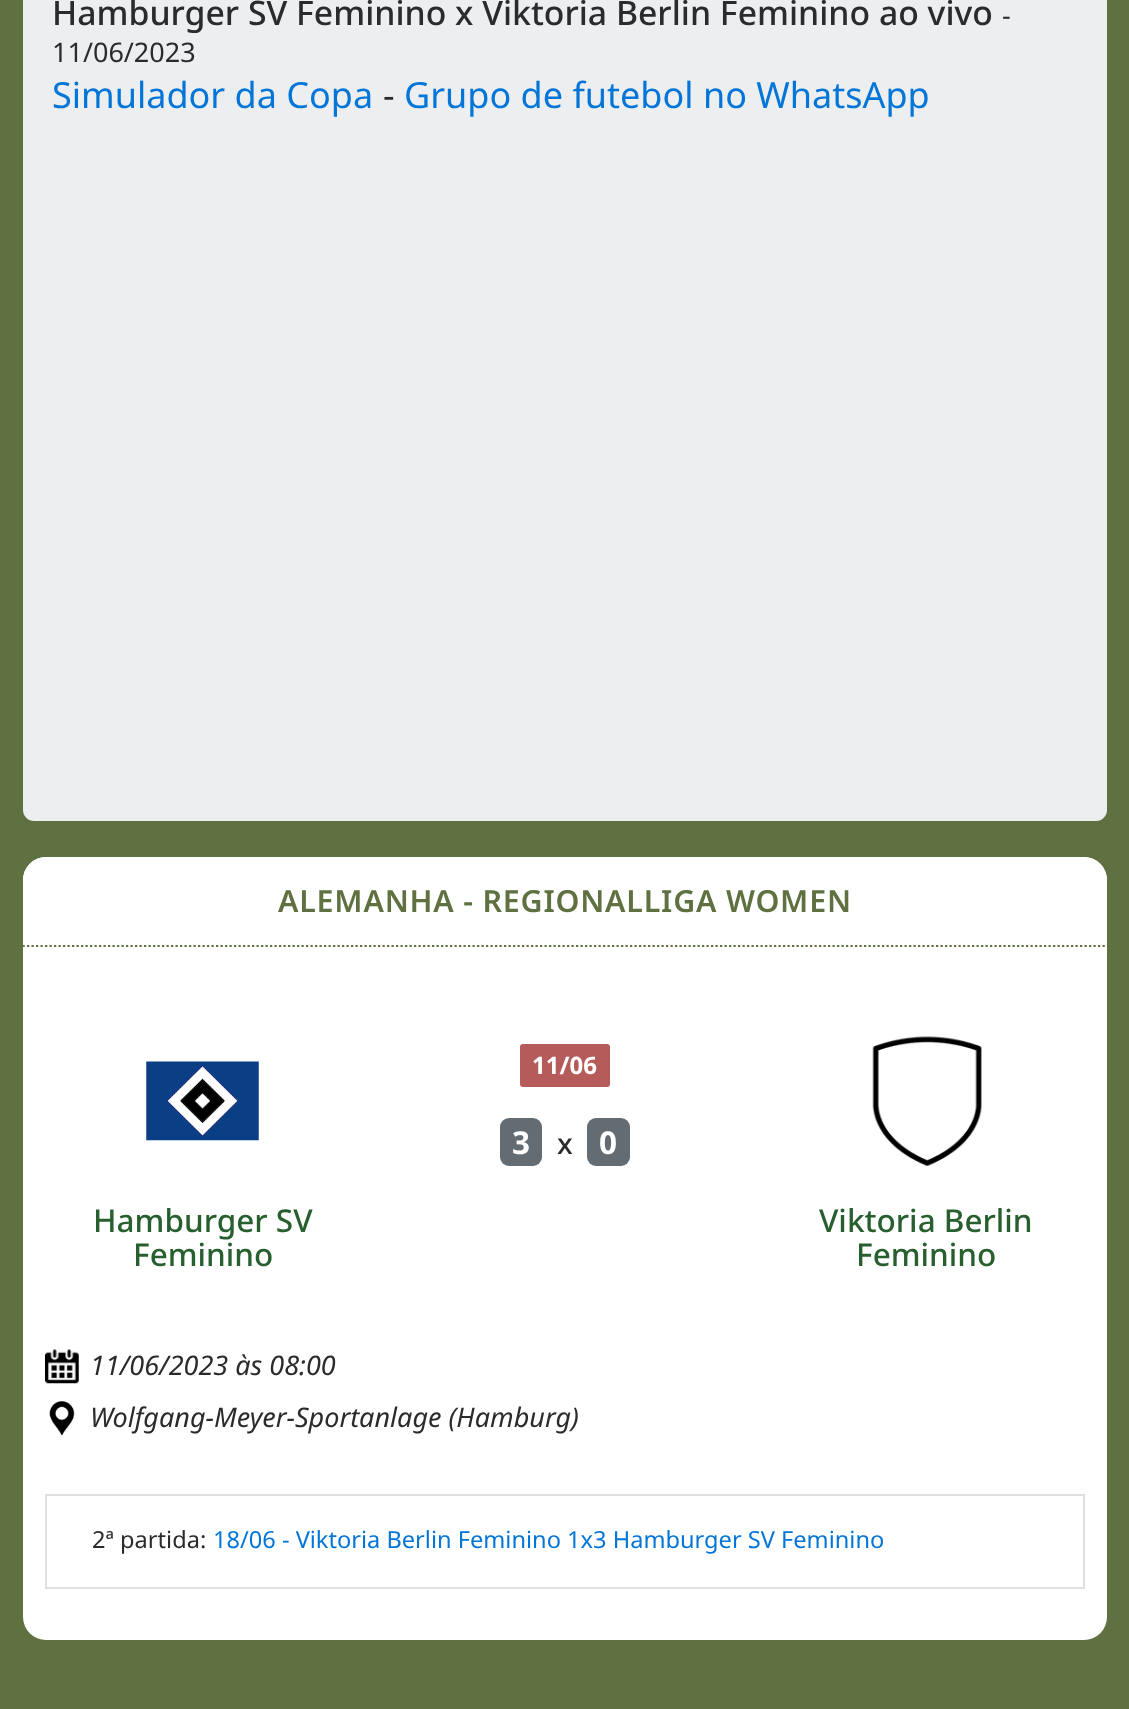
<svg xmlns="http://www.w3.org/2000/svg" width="1129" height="1709">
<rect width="100%" height="100%" fill="#5f7141"/>
<rect x="23" y="-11" width="1084" height="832" rx="11" fill="#eceeef"/>
<text x="52" y="25" style="font-family:Noto Sans;font-size:33.75px;font-weight:500;fill:#292b2c">Hamburger SV Feminino x Viktoria Berlin Feminino ao vivo</text>
<text x="1002" y="25" style="font-family:Noto Sans;font-size:27px;fill:#292b2c">-</text>
<text x="52" y="62" style="font-family:Noto Sans;font-size:27px;fill:#292b2c">11/06/2023</text>
<text x="52" y="108" style="font-family:Noto Sans;font-size:36px;fill:#0275d8">Simulador da Copa</text>
<text x="383" y="108" style="font-family:Noto Sans;font-size:36px;fill:#292b2c">-</text>
<text x="404" y="108" style="font-family:Noto Sans;font-size:36px;fill:#0275d8">Grupo de futebol no WhatsApp</text>
<rect x="23" y="857" width="1084" height="783" rx="23" fill="#fff"/>
<rect x="23" y="857" width="1084" height="432" rx="23" fill="#fff"/>
<path d="M22.5 946h1084.5" fill="none" stroke="#5f7141" stroke-width="2.2" stroke-dasharray="2.25 2.25"/>
<text x="278" y="912" style="font-family:Noto Sans;font-size:30.4px;font-weight:600;letter-spacing:0.8px;fill:#5f7141">ALEMANHA - REGIONALLIGA WOMEN</text>
<image x="146" y="1061" width="113" height="80" href="media/1.png"/>
<rect x="520" y="1044" width="90" height="43" rx="3" fill="#b55c5a"/>
<text x="532" y="1074" style="font-family:Noto Sans;font-size:24px;font-weight:bold;fill:#fff">11/06</text>
<rect x="500" y="1118" width="42" height="48" rx="9" fill="#636c72"/>
<text x="512" y="1154" style="font-family:Noto Sans;font-size:31.5px;font-weight:bold;fill:#fff">3</text>
<text x="557" y="1154" style="font-family:Noto Sans;font-size:29px;font-weight:500;fill:#292b2c">x</text>
<rect x="587" y="1118" width="43" height="48" rx="9" fill="#636c72"/>
<text x="599" y="1154" style="font-family:Noto Sans;font-size:31.5px;font-weight:bold;fill:#fff">0</text>
<image x="872" y="1036" width="110" height="131" href="media/2.png"/>
<text x="93" y="1232" style="font-family:Noto Sans;font-size:31.5px;font-weight:500;fill:#275f2f">Hamburger SV</text>
<text x="133" y="1266" style="font-family:Noto Sans;font-size:31.5px;font-weight:500;fill:#275f2f">Feminino</text>
<text x="819" y="1232" style="font-family:Noto Sans;font-size:31.5px;font-weight:500;fill:#275f2f">Viktoria Berlin</text>
<text x="856" y="1266" style="font-family:Noto Sans;font-size:31.5px;font-weight:500;fill:#275f2f">Feminino</text>
<image x="45" y="1349" width="34" height="35" href="media/3.png"/>
<text x="90" y="1375" style="font-family:Noto Sans;font-size:27px;font-style:italic;fill:#292b2c">11/06/2023 às 08:00</text>
<image x="49" y="1401" width="26" height="34" href="media/4.png"/>
<text x="90" y="1427" style="font-family:Noto Sans;font-size:27px;font-style:italic;fill:#292b2c">Wolfgang-Meyer-Sportanlage (Hamburg)</text>
<rect x="46" y="1495" width="1038" height="93" fill="none" stroke="#dfdfdf" stroke-width="2"/>
<text x="92" y="1548" style="font-family:Noto Sans;font-size:23.6px;fill:#292b2c">2ª partida:</text>
<text x="213" y="1548" style="font-family:Noto Sans;font-size:23.6px;fill:#0275d8">18/06 - Viktoria Berlin Feminino 1x3 Hamburger SV Feminino</text>
</svg>
